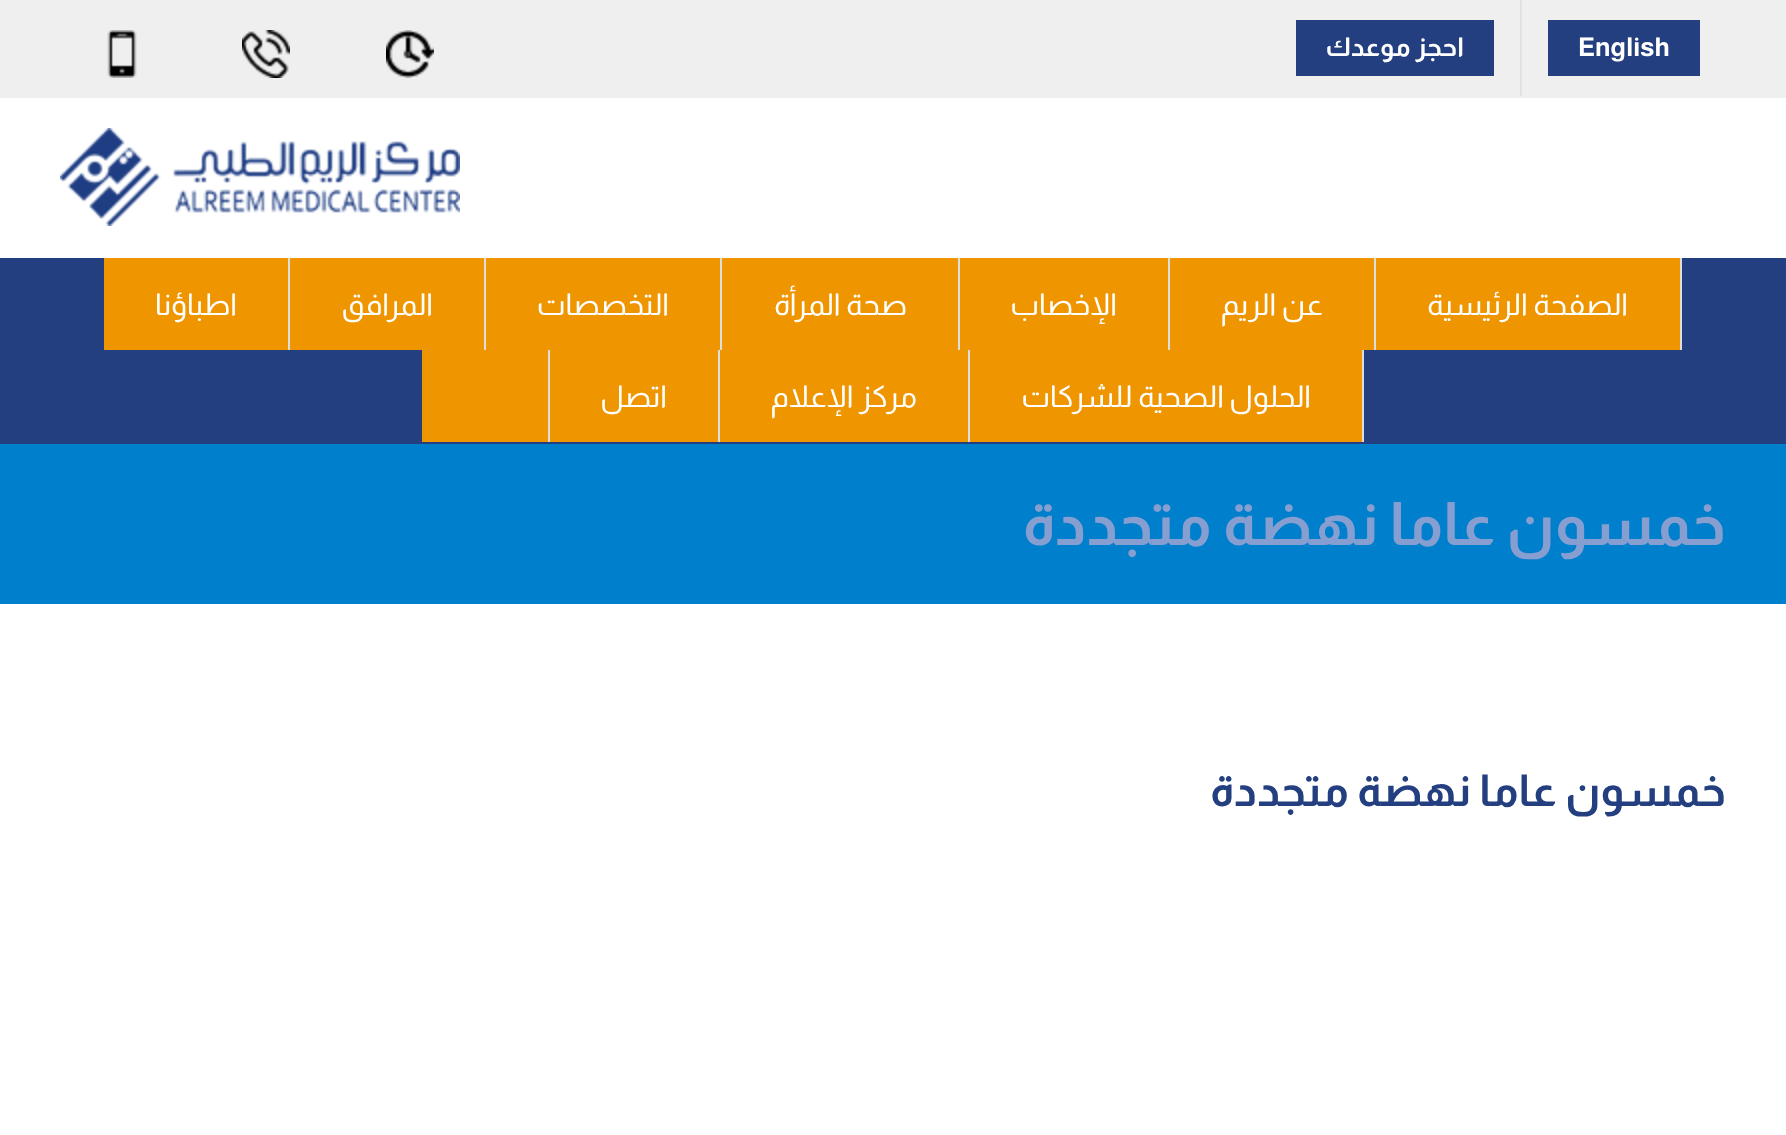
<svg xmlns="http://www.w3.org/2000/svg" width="1786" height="1135">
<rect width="100%" height="100%" fill="#fff"/>
<rect width="1786" height="98" fill="#efeff0"/>
<rect x="1520" width="2" height="96" fill="#e1e1e2"/>
<rect x="1548" y="20" width="152" height="56" fill="#233f80"/>
<text x="1578" y="56" style="font-family:Almarai;font-size:26px;font-weight:bold;fill:#fff">English</text>
<rect x="1296" y="20" width="198" height="56" fill="#233f80"/>
<text x="1464" y="56" style="font-family:Almarai;font-size:26px;font-weight:bold;direction:rtl;fill:#fff">احجز موعدك</text>
<image x="386" y="30" width="48" height="48" href="media/1.png"/>
<image x="242" y="30" width="48" height="48" href="media/2.png"/>
<image x="107" y="30" width="30" height="48" href="media/3.png"/>
<image x="60" y="128" width="400" height="98" href="media/4.png"/>
<rect y="258" width="1786" height="186" fill="#233f80"/>
<rect x="1376" y="258" width="304" height="92" fill="#ee9500"/>
<rect x="1680" y="258" width="2" height="92" fill="#ddd"/>
<text x="1628" y="315" style="font-family:Almarai;font-size:30px;direction:rtl;fill:#fff">الصفحة الرئيسية</text>
<rect x="1170" y="258" width="204" height="92" fill="#ee9500"/>
<rect x="1374" y="258" width="2" height="92" fill="#ddd"/>
<text x="1323" y="315" style="font-family:Almarai;font-size:30px;direction:rtl;fill:#fff">عن الريم</text>
<rect x="960" y="258" width="208" height="92" fill="#ee9500"/>
<rect x="1168" y="258" width="2" height="92" fill="#ddd"/>
<text x="1117" y="315" style="font-family:Almarai;font-size:30px;direction:rtl;fill:#fff">الإخصاب</text>
<rect x="722" y="258" width="236" height="92" fill="#ee9500"/>
<rect x="958" y="258" width="2" height="92" fill="#ddd"/>
<text x="907" y="315" style="font-family:Almarai;font-size:30px;direction:rtl;fill:#fff">صحة المرأة</text>
<rect x="486" y="258" width="234" height="92" fill="#ee9500"/>
<rect x="720" y="258" width="2" height="92" fill="#ddd"/>
<text x="669" y="315" style="font-family:Almarai;font-size:30px;direction:rtl;fill:#fff">التخصصات</text>
<rect x="290" y="258" width="194" height="92" fill="#ee9500"/>
<rect x="484" y="258" width="2" height="92" fill="#ddd"/>
<text x="433" y="315" style="font-family:Almarai;font-size:30px;direction:rtl;fill:#fff">المرافق</text>
<rect x="104" y="258" width="184" height="92" fill="#ee9500"/>
<rect x="288" y="258" width="2" height="92" fill="#ddd"/>
<text x="237" y="315" style="font-family:Almarai;font-size:30px;direction:rtl;fill:#fff">اطباؤنا</text>
<rect x="970" y="350" width="392" height="92" fill="#ee9500"/>
<rect x="1362" y="350" width="2" height="92" fill="#ddd"/>
<text x="1311" y="407" style="font-family:Almarai;font-size:30px;direction:rtl;fill:#fff">الحلول الصحية للشركات</text>
<rect x="720" y="350" width="248" height="92" fill="#ee9500"/>
<rect x="968" y="350" width="2" height="92" fill="#ddd"/>
<text x="917" y="407" style="font-family:Almarai;font-size:30px;direction:rtl;fill:#fff">مركز الإعلام</text>
<rect x="550" y="350" width="168" height="92" fill="#ee9500"/>
<rect x="718" y="350" width="2" height="92" fill="#ddd"/>
<text x="667" y="407" style="font-family:Almarai;font-size:30px;direction:rtl;fill:#fff">اتصل</text>
<rect x="422" y="350" width="126" height="92" fill="#ee9500"/>
<rect x="548" y="350" width="2" height="92" fill="#ddd"/>
<rect y="444" width="1786" height="160" fill="#007fcc"/>
<text x="1726" y="545" style="font-family:Almarai;font-size:60px;font-weight:bold;direction:rtl;fill:#879fd0">خمسون عاما نهضة متجددة</text>
<text x="1726" y="806" style="font-family:Almarai;font-size:44px;font-weight:bold;direction:rtl;fill:#233f80">خمسون عاما نهضة متجددة</text>
</svg>
